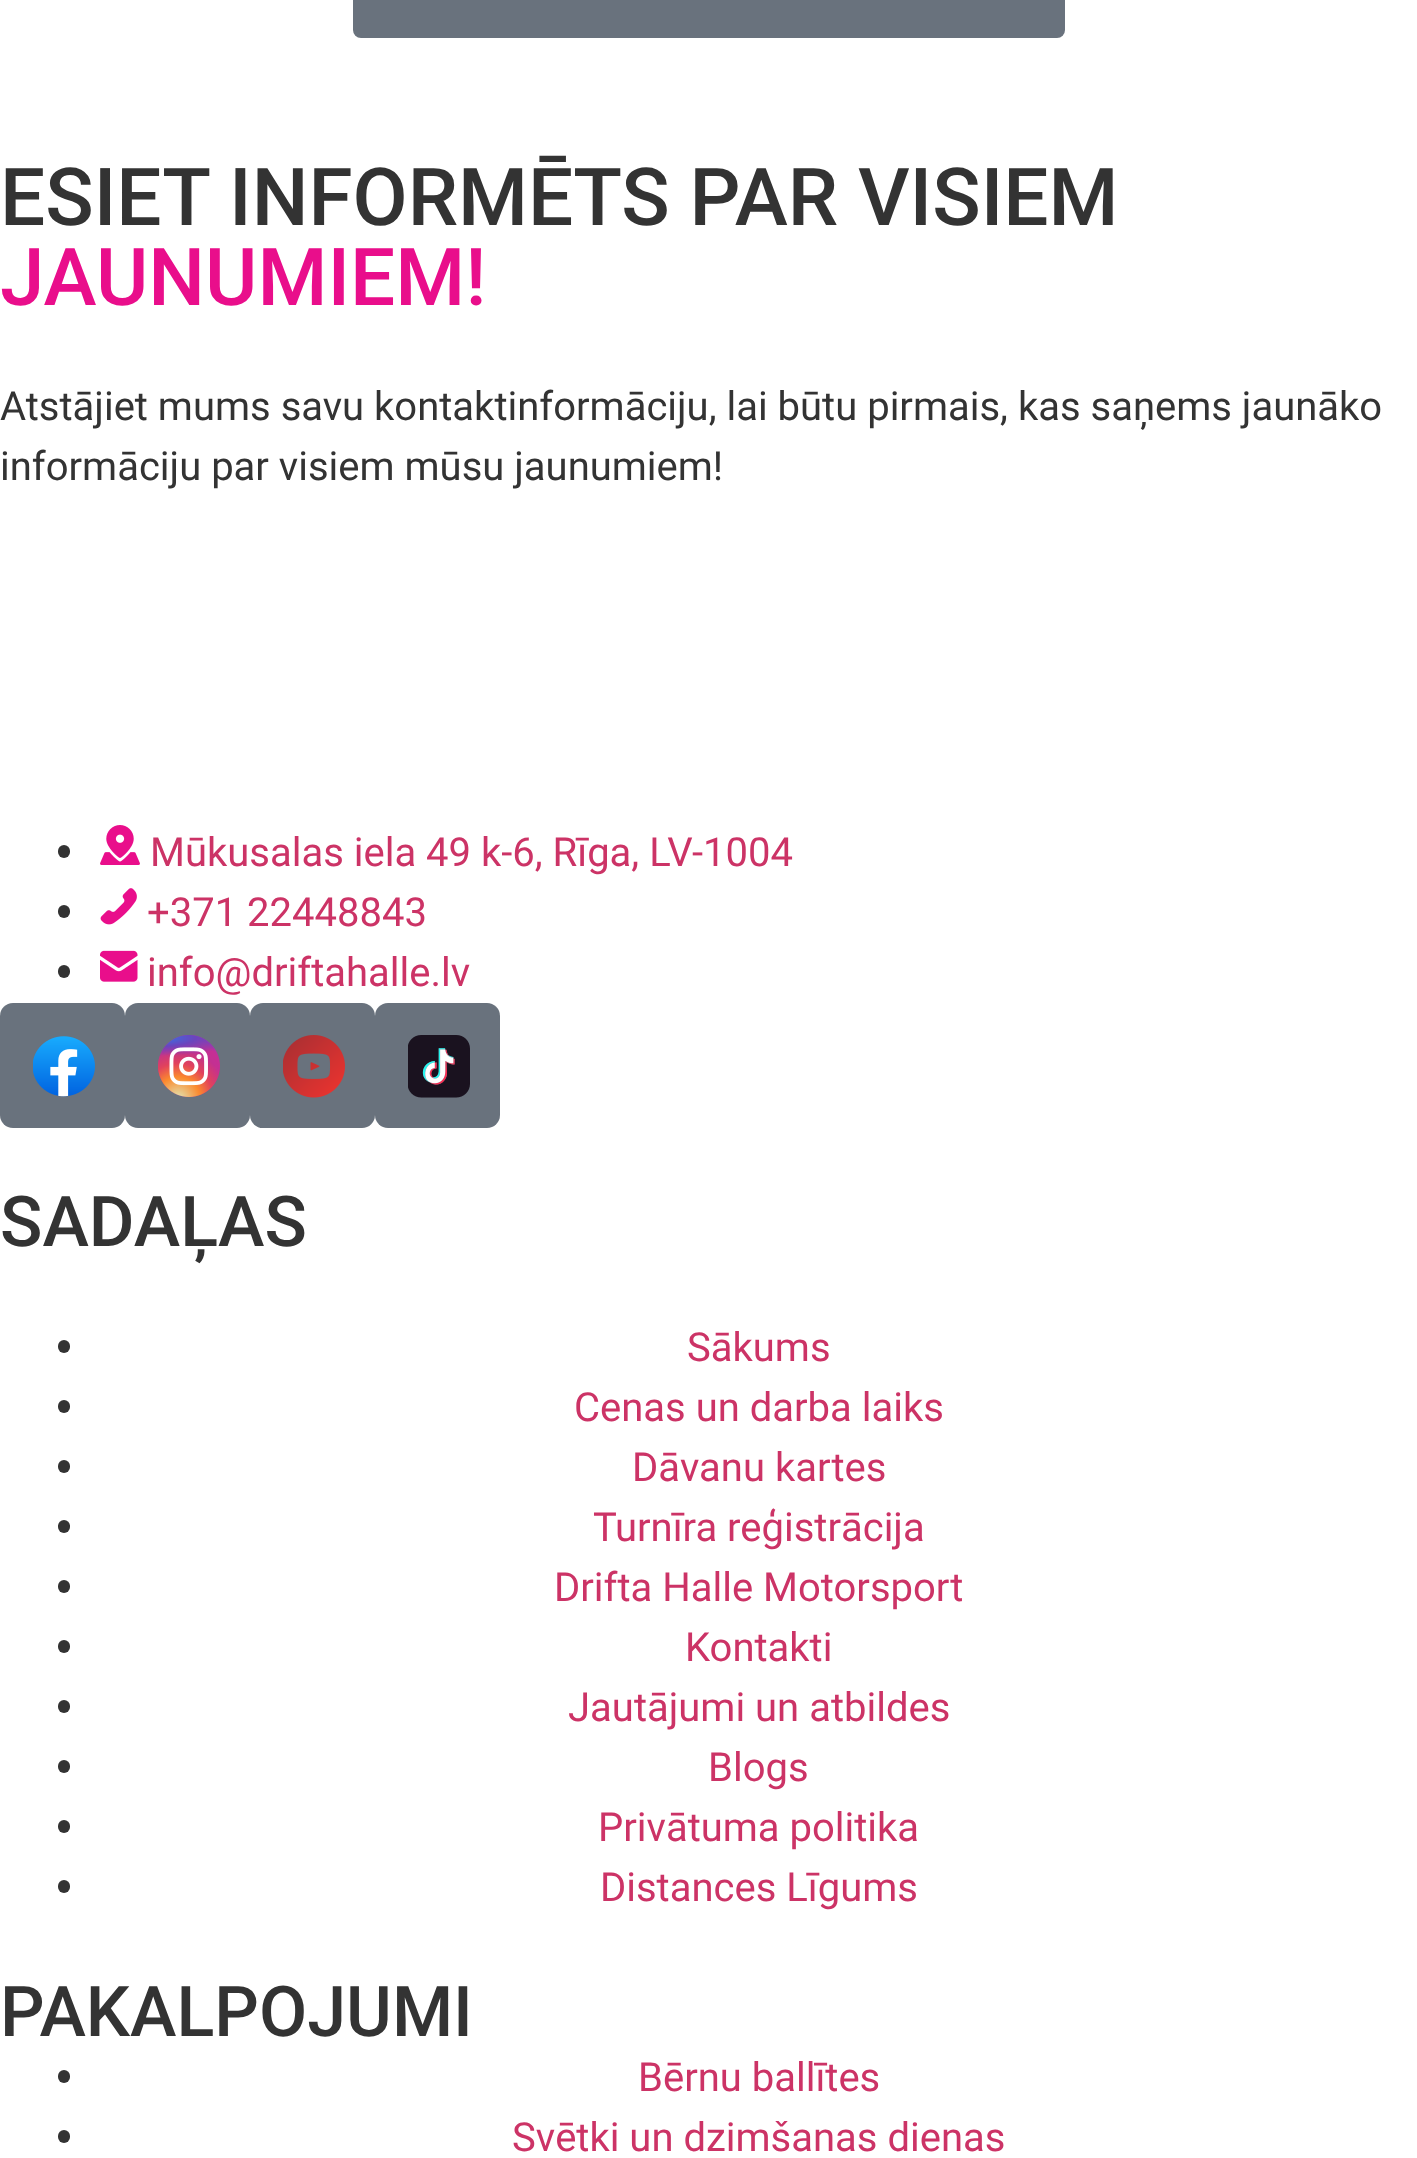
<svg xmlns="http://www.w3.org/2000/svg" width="1417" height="2158">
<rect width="100%" height="100%" fill="#fff"/>
<rect x="353" y="-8" width="712" height="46" rx="8" fill="#69727d"/>
<text x="0" y="225" style="font-family:Roboto;font-size:80px;font-weight:500;fill:#333">ESIET INFORMĒTS PAR VISIEM</text>
<text x="0" y="305" style="font-family:Roboto;font-size:80px;font-weight:500;fill:#e90e8b">JAUNUMIEM!</text>
<text x="0" y="420" style="font-family:Roboto;font-size:40px;fill:#333">Atstājiet mums savu kontaktinformāciju, lai būtu pirmais, kas saņems jaunāko</text>
<text x="0" y="480" style="font-family:Roboto;font-size:40px;fill:#333">informāciju par visiem mūsu jaunumiem!</text>
<rect x="58" y="845" width="12" height="13" rx="6" fill="#333"/>
<image x="100" y="825" width="40" height="40" href="media/1.png"/>
<text x="150" y="866" style="font-family:Roboto;font-size:40px;fill:#c36">Mūkusalas iela 49 k-6, Rīga, LV-1004</text>
<rect x="58" y="905" width="12" height="13" rx="6" fill="#333"/>
<image x="100" y="888" width="37" height="37" href="media/2.png"/>
<text x="147" y="926" style="font-family:Roboto;font-size:40px;fill:#c36">+371 22448843</text>
<rect x="58" y="965" width="12" height="13" rx="6" fill="#333"/>
<image x="100" y="950" width="38" height="32" href="media/3.png"/>
<text x="147" y="986" style="font-family:Roboto;font-size:40px;fill:#c36">info@driftahalle.lv</text>
<rect y="1003" width="125" height="125" rx="13" fill="#69727d"/>
<image x="33" y="1036" width="62" height="61" href="media/4.png"/>
<rect x="125" y="1003" width="125" height="125" rx="13" fill="#69727d"/>
<image x="158" y="1035" width="62" height="62" href="media/5.png"/>
<rect x="250" y="1003" width="125" height="125" rx="13" fill="#69727d"/>
<image x="283" y="1035" width="62" height="63" href="media/6.png"/>
<rect x="375" y="1003" width="125" height="125" rx="13" fill="#69727d"/>
<image x="408" y="1035" width="62" height="63" href="media/7.png"/>
<text x="0" y="1246" style="font-family:Roboto;font-size:70px;font-weight:500;fill:#333">SADAĻAS</text>
<rect x="58" y="1340" width="12" height="13" rx="6" fill="#333"/>
<text x="687" y="1361" style="font-family:Roboto;font-size:40px;fill:#c36">Sākums</text>
<rect x="58" y="1400" width="12" height="13" rx="6" fill="#333"/>
<text x="574" y="1421" style="font-family:Roboto;font-size:40px;fill:#c36">Cenas un darba laiks</text>
<rect x="58" y="1460" width="12" height="13" rx="6" fill="#333"/>
<text x="632" y="1481" style="font-family:Roboto;font-size:40px;fill:#c36">Dāvanu kartes</text>
<rect x="58" y="1520" width="12" height="13" rx="6" fill="#333"/>
<text x="593" y="1541" style="font-family:Roboto;font-size:40px;fill:#c36">Turnīra reģistrācija</text>
<rect x="58" y="1580" width="12" height="13" rx="6" fill="#333"/>
<text x="554" y="1601" style="font-family:Roboto;font-size:40px;fill:#c36">Drifta Halle Motorsport</text>
<rect x="58" y="1640" width="12" height="13" rx="6" fill="#333"/>
<text x="685" y="1661" style="font-family:Roboto;font-size:40px;fill:#c36">Kontakti</text>
<rect x="58" y="1700" width="12" height="13" rx="6" fill="#333"/>
<text x="568" y="1721" style="font-family:Roboto;font-size:40px;fill:#c36">Jautājumi un atbildes</text>
<rect x="58" y="1760" width="12" height="13" rx="6" fill="#333"/>
<text x="708" y="1781" style="font-family:Roboto;font-size:40px;fill:#c36">Blogs</text>
<rect x="58" y="1820" width="12" height="13" rx="6" fill="#333"/>
<text x="598" y="1841" style="font-family:Roboto;font-size:40px;fill:#c36">Privātuma politika</text>
<rect x="58" y="1880" width="12" height="13" rx="6" fill="#333"/>
<text x="600" y="1901" style="font-family:Roboto;font-size:40px;fill:#c36">Distances Līgums</text>
<text x="0" y="2036" style="font-family:Roboto;font-size:70px;font-weight:500;fill:#333">PAKALPOJUMI</text>
<rect x="58" y="2070" width="12" height="13" rx="6" fill="#333"/>
<text x="638" y="2091" style="font-family:Roboto;font-size:40px;fill:#c36">Bērnu ballītes</text>
<rect x="58" y="2130" width="12" height="13" rx="6" fill="#333"/>
<text x="512" y="2151" style="font-family:Roboto;font-size:40px;fill:#c36">Svētki un dzimšanas dienas</text>
</svg>
